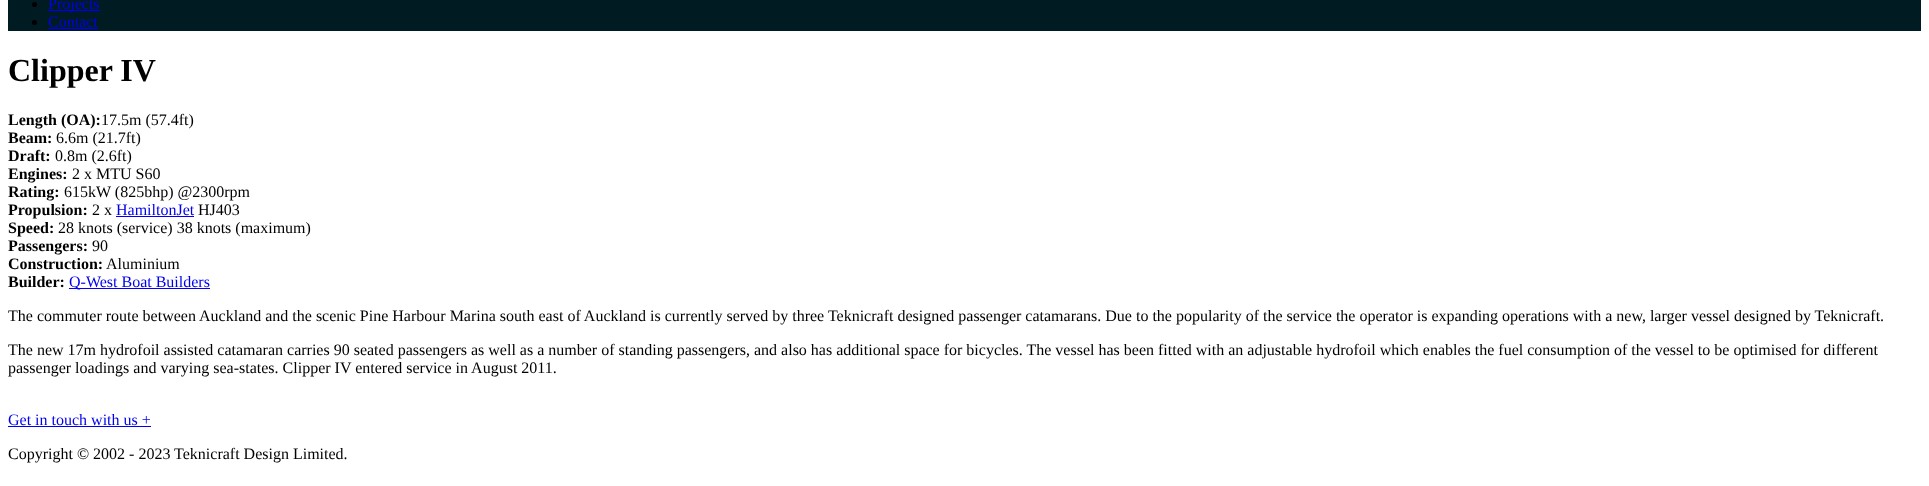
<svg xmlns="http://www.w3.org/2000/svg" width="1929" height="486">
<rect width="100%" height="100%" fill="#fff"/>
<rect x="8" width="1913" height="31" fill="#011b23"/>
<circle cx="34.5" cy="4.5" r="2.5" fill="#000"/>
<rect x="48" y="10" width="52" height="1" fill="#00e"/>
<text x="48" y="9" style="font-family:Liberation Serif;font-size:16px;fill:#00e">Projects</text>
<circle cx="34.5" cy="22.5" r="2.5" fill="#000"/>
<text x="48" y="27" style="font-family:Liberation Serif;font-size:16px;fill:#00e">Contact</text>
<rect x="48" y="28" width="50" height="1" fill="#00e"/>
<text x="8" y="81" style="font-family:Liberation Serif;font-size:32px;font-weight:bold;fill:#000">Clipper IV</text>
<text x="8" y="125" style="font-family:Liberation Serif;font-size:16px;font-weight:bold;fill:#000">Length (OA):</text>
<text x="101" y="125" style="font-family:Liberation Serif;font-size:16px;fill:#000">17.5m (57.4ft)</text>
<text x="8" y="143" style="font-family:Liberation Serif;font-size:16px;font-weight:bold;fill:#000">Beam:</text>
<text x="56" y="143" style="font-family:Liberation Serif;font-size:16px;fill:#000">6.6m (21.7ft)</text>
<text x="8" y="161" style="font-family:Liberation Serif;font-size:16px;font-weight:bold;fill:#000">Draft:</text>
<text x="55" y="161" style="font-family:Liberation Serif;font-size:16px;fill:#000">0.8m (2.6ft)</text>
<text x="8" y="179" style="font-family:Liberation Serif;font-size:16px;font-weight:bold;fill:#000">Engines:</text>
<text x="72" y="179" style="font-family:Liberation Serif;font-size:16px;fill:#000">2 x MTU S60</text>
<text x="8" y="197" style="font-family:Liberation Serif;font-size:16px;font-weight:bold;fill:#000">Rating:</text>
<text x="64" y="197" style="font-family:Liberation Serif;font-size:16px;fill:#000">615kW (825bhp) @2300rpm</text>
<text x="8" y="215" style="font-family:Liberation Serif;font-size:16px;font-weight:bold;fill:#000">Propulsion:</text>
<text x="92" y="215" style="font-family:Liberation Serif;font-size:16px;fill:#000">2 x</text>
<text x="116" y="215" style="font-family:Liberation Serif;font-size:16px;fill:#00e">HamiltonJet</text>
<rect x="116" y="216" width="78" height="1" fill="#00e"/>
<text x="198" y="215" style="font-family:Liberation Serif;font-size:16px;fill:#000">HJ403</text>
<text x="8" y="233" style="font-family:Liberation Serif;font-size:16px;font-weight:bold;fill:#000">Speed:</text>
<text x="58" y="233" style="font-family:Liberation Serif;font-size:16px;fill:#000">28 knots (service) 38 knots (maximum)</text>
<text x="8" y="251" style="font-family:Liberation Serif;font-size:16px;font-weight:bold;fill:#000">Passengers:</text>
<text x="92" y="251" style="font-family:Liberation Serif;font-size:16px;fill:#000">90</text>
<text x="8" y="269" style="font-family:Liberation Serif;font-size:16px;font-weight:bold;fill:#000">Construction:</text>
<text x="106" y="269" style="font-family:Liberation Serif;font-size:16px;fill:#000">Aluminium</text>
<text x="8" y="287" style="font-family:Liberation Serif;font-size:16px;font-weight:bold;fill:#000">Builder:</text>
<rect x="69" y="288" width="141" height="1" fill="#00e"/>
<text x="69" y="287" style="font-family:Liberation Serif;font-size:16px;fill:#00e">Q-West Boat Builders</text>
<text x="8" y="321" style="font-family:Liberation Serif;font-size:16px;fill:#000">The commuter route between Auckland and the scenic Pine Harbour Marina south east of Auckland is currently served by three Teknicraft designed passenger catamarans. Due to the popularity of the service the operator is expanding operations with a new, larger vessel designed by Teknicraft.</text>
<text x="8" y="355" style="font-family:Liberation Serif;font-size:16px;fill:#000">The new 17m hydrofoil assisted catamaran carries 90 seated passengers as well as a number of standing passengers, and also has additional space for bicycles. The vessel has been fitted with an adjustable hydrofoil which enables the fuel consumption of the vessel to be optimised for different</text>
<text x="8" y="373" style="font-family:Liberation Serif;font-size:16px;fill:#000">passenger loadings and varying sea-states. Clipper IV entered service in August 2011.</text>
<text x="8" y="425" style="font-family:Liberation Serif;font-size:16px;fill:#00e">Get in touch with us +</text>
<rect x="8" y="426" width="143" height="1" fill="#00e"/>
<text x="8" y="459" style="font-family:Liberation Serif;font-size:16px;fill:#000">Copyright © 2002 - 2023 Teknicraft Design Limited.</text>
</svg>
